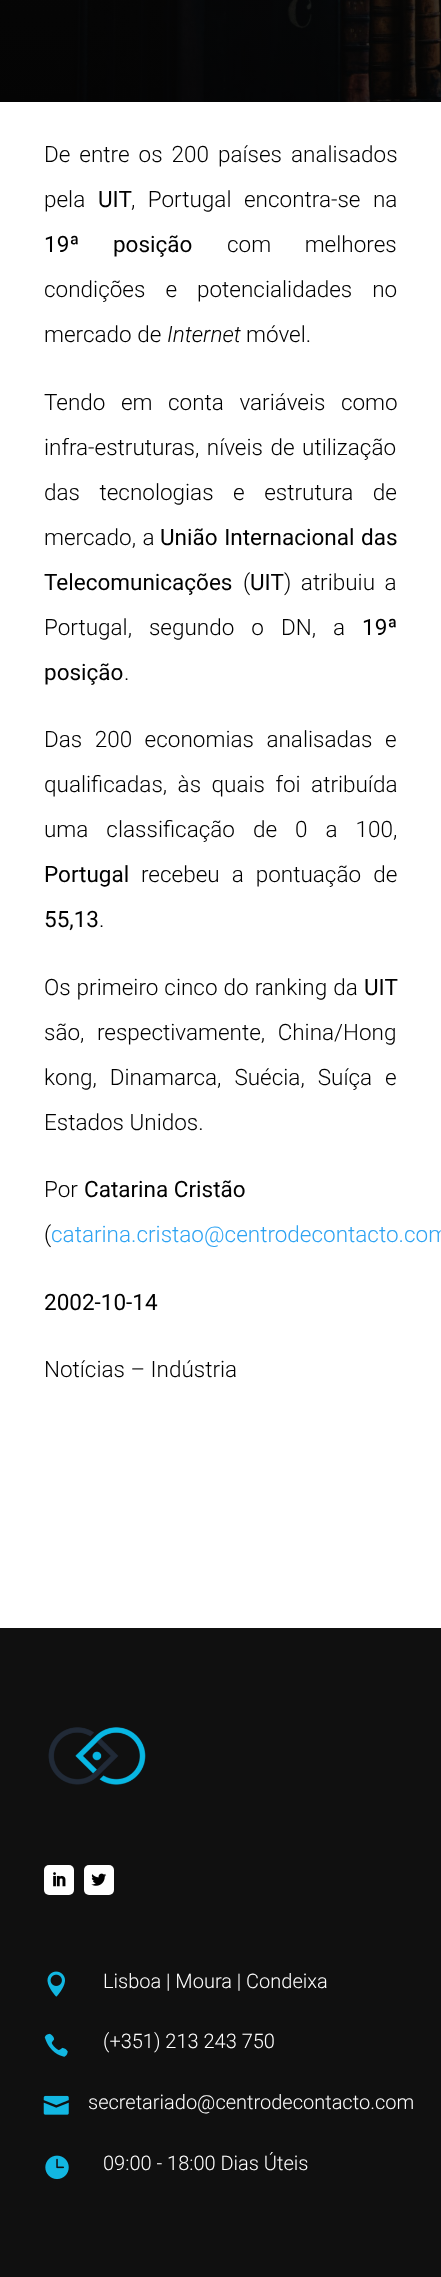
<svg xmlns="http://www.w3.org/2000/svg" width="441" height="2277">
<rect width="100%" height="100%" fill="#fff"/>
<image x="0" y="0" width="441" height="102" href="media/1.png"/>
<text x="44" y="162" word-spacing="3.5" style="font-family:Roboto;font-size:22.5px;font-weight:300;fill:#000">De entre os 200 países analisados</text>
<text x="44" y="207" style="font-family:Roboto;font-size:22.5px;font-weight:300;fill:#000">pela</text>
<text x="98" y="207" style="font-family:Roboto;font-size:22.5px;fill:#000">UIT</text>
<text x="131" y="207" word-spacing="7" style="font-family:Roboto;font-size:22.5px;font-weight:300;fill:#000">, Portugal encontra-se na</text>
<text x="44" y="252" word-spacing="28" style="font-family:Roboto;font-size:22.5px;fill:#000">19ª posição</text>
<text x="227" y="252" word-spacing="28" style="font-family:Roboto;font-size:22.5px;font-weight:300;fill:#000">com melhores</text>
<text x="44" y="297" word-spacing="14.5" style="font-family:Roboto;font-size:22.5px;font-weight:300;fill:#000">condições e potencialidades no</text>
<text x="44" y="342" style="font-family:Roboto;font-size:22.5px;font-weight:300;fill:#000">mercado de</text>
<text x="167" y="342" style="font-family:Roboto;font-size:22.5px;font-weight:300;font-style:italic;fill:#000">Internet</text>
<text x="246" y="342" style="font-family:Roboto;font-size:22.5px;font-weight:300;fill:#000">móvel.</text>
<text x="44" y="410" word-spacing="10" style="font-family:Roboto;font-size:22.5px;font-weight:300;fill:#000">Tendo em conta variáveis como</text>
<text x="44" y="455" word-spacing="2" style="font-family:Roboto;font-size:22.5px;font-weight:300;fill:#000">infra-estruturas, níveis de utilização</text>
<text x="44" y="500" word-spacing="14" style="font-family:Roboto;font-size:22.5px;font-weight:300;fill:#000">das tecnologias e estrutura de</text>
<text x="44" y="545" word-spacing="1" style="font-family:Roboto;font-size:22.5px;font-weight:300;fill:#000">mercado, a</text>
<text x="160" y="545" word-spacing="1" style="font-family:Roboto;font-size:22.5px;fill:#000">União Internacional das</text>
<text x="44" y="590" style="font-family:Roboto;font-size:22.5px;fill:#000">Telecomunicações</text>
<text x="243" y="590" style="font-family:Roboto;font-size:22.5px;font-weight:300;fill:#000">(</text>
<text x="250" y="590" style="font-family:Roboto;font-size:22.5px;fill:#000">UIT</text>
<text x="284" y="590" word-spacing="4" style="font-family:Roboto;font-size:22.5px;font-weight:300;fill:#000">) atribuiu a</text>
<text x="44" y="635" word-spacing="11.5" style="font-family:Roboto;font-size:22.5px;font-weight:300;fill:#000">Portugal, segundo o DN, a</text>
<text x="362" y="635" style="font-family:Roboto;font-size:22.5px;fill:#000">19ª</text>
<text x="44" y="680" style="font-family:Roboto;font-size:22.5px;fill:#000">posição</text>
<text x="124" y="680" style="font-family:Roboto;font-size:22.5px;font-weight:300;fill:#000">.</text>
<text x="44" y="747" word-spacing="7" style="font-family:Roboto;font-size:22.5px;font-weight:300;fill:#000">Das 200 economias analisadas e</text>
<text x="44" y="792" word-spacing="5" style="font-family:Roboto;font-size:22.5px;font-weight:300;fill:#000">qualificadas, às quais foi atribuída</text>
<text x="44" y="837" word-spacing="12.5" style="font-family:Roboto;font-size:22.5px;font-weight:300;fill:#000">uma classificação de 0 a 100,</text>
<text x="44" y="882" style="font-family:Roboto;font-size:22.5px;fill:#000">Portugal</text>
<text x="141" y="882" word-spacing="6.5" style="font-family:Roboto;font-size:22.5px;font-weight:300;fill:#000">recebeu a pontuação de</text>
<text x="44" y="927" style="font-family:Roboto;font-size:22.5px;fill:#000">55,13</text>
<text x="99" y="927" style="font-family:Roboto;font-size:22.5px;font-weight:300;fill:#000">.</text>
<text x="44" y="995" word-spacing="0.5" style="font-family:Roboto;font-size:22.5px;font-weight:300;fill:#000">Os primeiro cinco do ranking da</text>
<text x="364" y="995" style="font-family:Roboto;font-size:22.5px;fill:#000">UIT</text>
<text x="44" y="1040" word-spacing="7" style="font-family:Roboto;font-size:22.5px;font-weight:300;fill:#000">são, respectivamente, China/Hong</text>
<text x="44" y="1085" word-spacing="7.5" style="font-family:Roboto;font-size:22.5px;font-weight:300;fill:#000">kong, Dinamarca, Suécia, Suíça e</text>
<text x="44" y="1130" style="font-family:Roboto;font-size:22.5px;font-weight:300;fill:#000">Estados Unidos.</text>
<text x="44" y="1197" style="font-family:Roboto;font-size:22.5px;font-weight:300;fill:#000">Por</text>
<text x="84" y="1197" style="font-family:Roboto;font-size:22.5px;fill:#000">Catarina Cristão</text>
<text x="44" y="1242" style="font-family:Roboto;font-size:22.5px;font-weight:300;fill:#000">(</text>
<text x="51" y="1242" style="font-family:Roboto;font-size:22.5px;font-weight:300;fill:#2ea3f2">catarina.cristao@centrodecontacto.com</text>
<text x="44" y="1310" style="font-family:Roboto;font-size:22.5px;fill:#000">2002-10-14</text>
<text x="44" y="1377" style="font-family:Roboto;font-size:22.5px;font-weight:300;fill:#000">Notícias – Indústria</text>
<rect y="1628" width="441" height="649" fill="#101010"/>
<image x="48" y="1727" width="98" height="58" href="media/2.png"/>
<rect x="44" y="1865" width="30" height="30" rx="5" fill="#fff"/>
<image x="53" y="1872" width="13" height="15" href="media/3.png"/>
<rect x="84" y="1865" width="30" height="30" rx="5" fill="#fff"/>
<image x="91" y="1873" width="16" height="13" href="media/4.png"/>
<image x="47" y="1971" width="18" height="26" href="media/5.png"/>
<text x="103" y="1988" style="font-family:Roboto;font-size:20px;font-weight:300;fill:#fff">Lisboa | Moura | Condeixa</text>
<image x="44" y="2033" width="24" height="24" href="media/6.png"/>
<text x="103" y="2048" style="font-family:Roboto;font-size:20px;font-weight:300;fill:#fff">(+351) 213 243 750</text>
<image x="43" y="2095" width="26" height="20" href="media/7.png"/>
<text x="88" y="2109" style="font-family:Roboto;font-size:20px;font-weight:300;fill:#fff">secretariado@centrodecontacto.com</text>
<image x="45" y="2155" width="24" height="25" href="media/8.png"/>
<text x="103" y="2170" style="font-family:Roboto;font-size:20px;font-weight:300;fill:#fff">09:00 - 18:00 Dias Úteis</text>
</svg>
